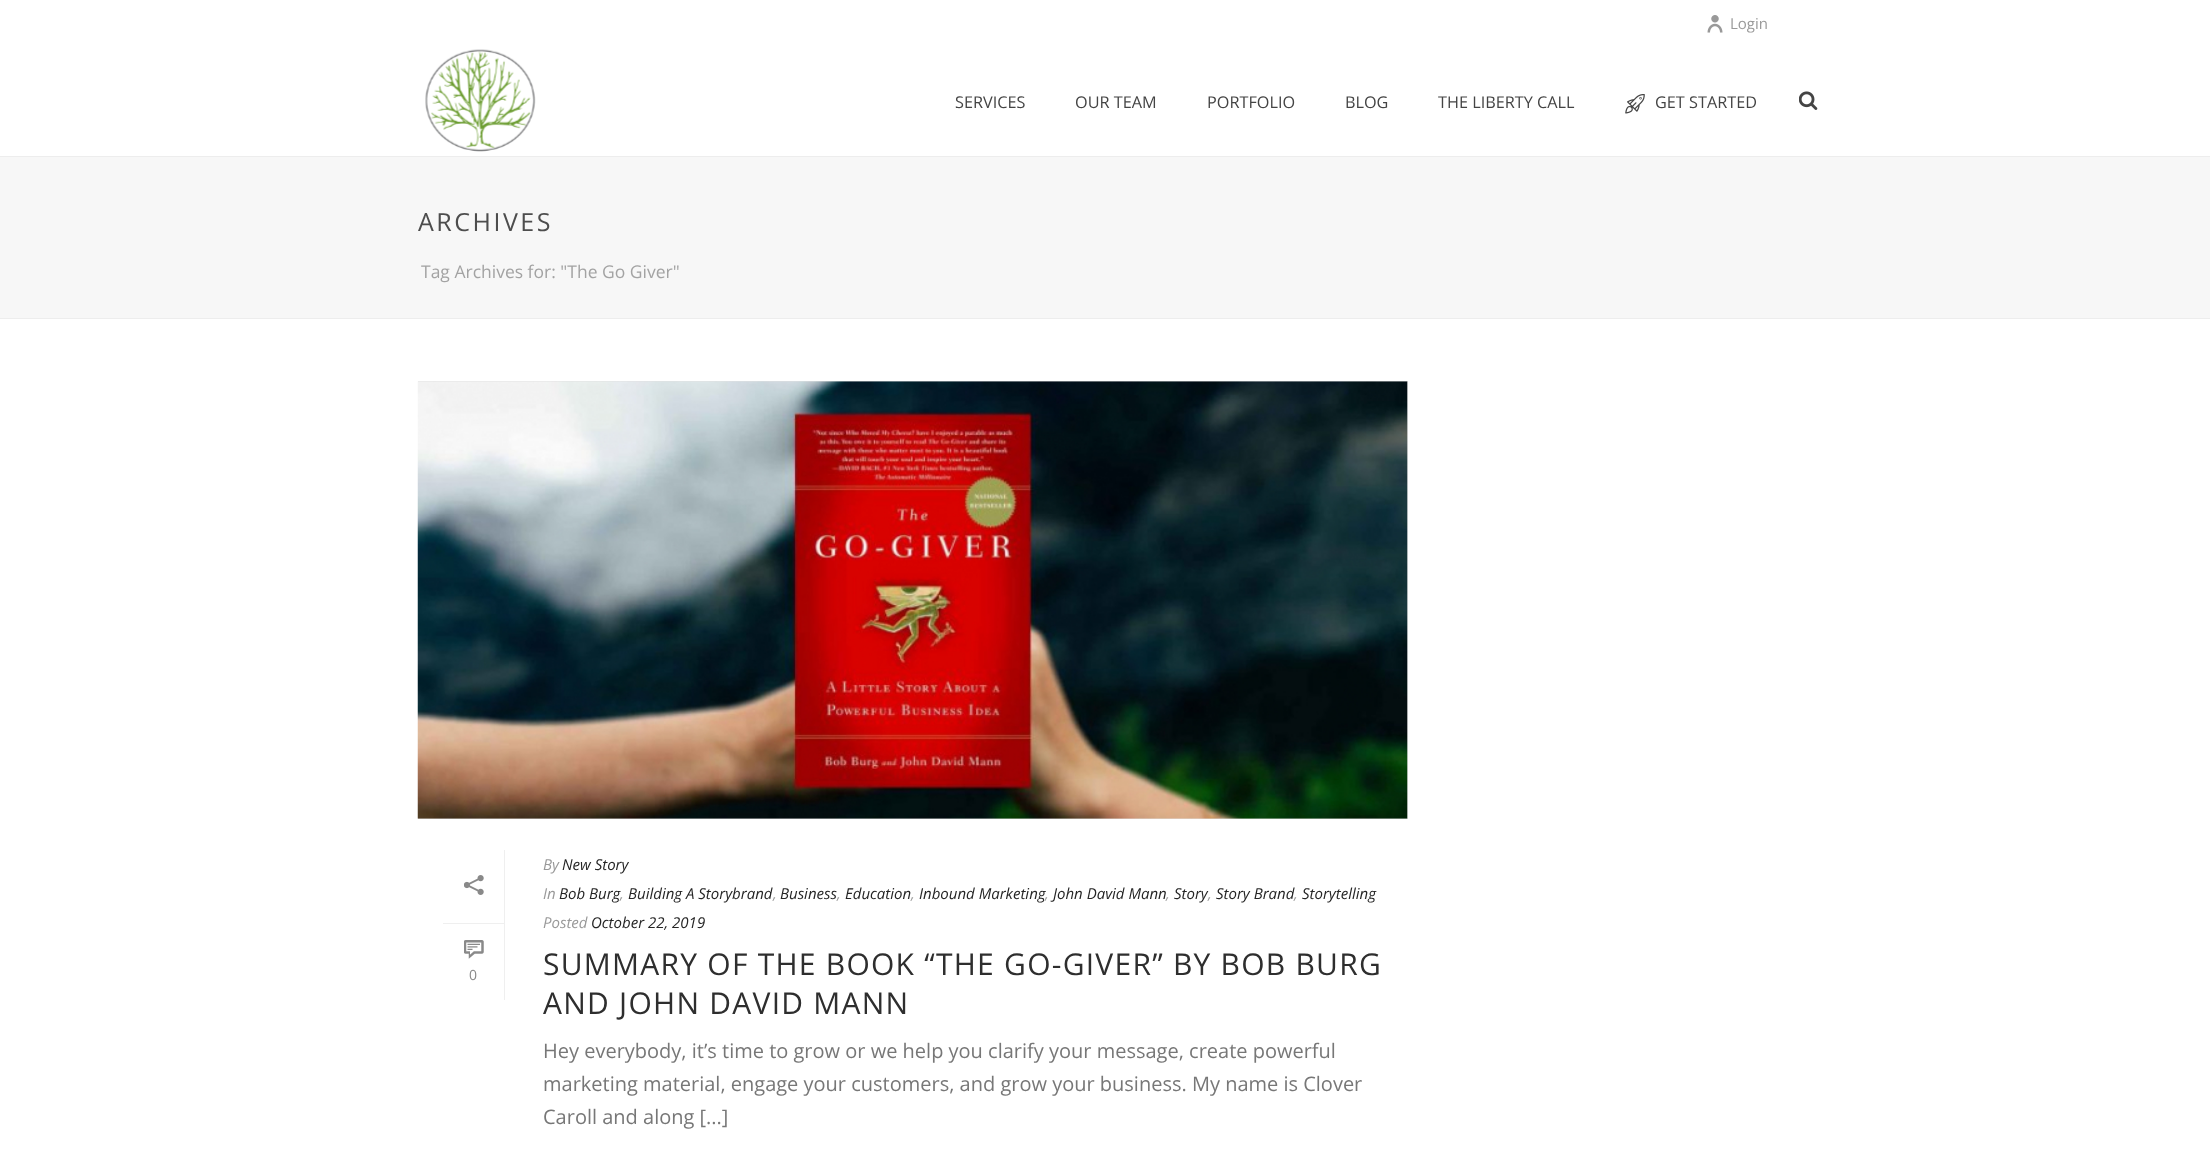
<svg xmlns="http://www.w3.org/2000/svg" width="2210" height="1149">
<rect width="100%" height="100%" fill="#fff"/>
<rect y="157" width="2210" height="161" fill="#f7f7f7"/>
<rect y="318" width="2210" height="1" fill="#ededed"/>
<image x="1707" y="15" width="16" height="18" href="media/1.png"/>
<text x="1730" y="29" style="font-family:Open Sans;font-size:15px;fill:#999">Login</text>
<rect y="156" width="2210" height="1" fill="#ededed"/>
<image x="425" y="49" width="111" height="103" href="media/2.png"/>
<text x="955" y="108" style="font-family:Open Sans;font-size:16.25px;fill:#444">SERVICES</text>
<text x="1075" y="108" style="font-family:Open Sans;font-size:16.25px;fill:#444">OUR TEAM</text>
<text x="1207" y="108" style="font-family:Open Sans;font-size:16.25px;fill:#444">PORTFOLIO</text>
<text x="1345" y="108" style="font-family:Open Sans;font-size:16.25px;fill:#444">BLOG</text>
<text x="1438" y="108" style="font-family:Open Sans;font-size:16.25px;fill:#444">THE LIBERTY CALL</text>
<image x="1625" y="94" width="20" height="20" href="media/3.png"/>
<text x="1655" y="108" style="font-family:Open Sans;font-size:16.25px;fill:#444">GET STARTED</text>
<image x="1799" y="91" width="19" height="19" href="media/4.png"/>
<text x="418" y="231" style="font-family:Open Sans;font-size:25px;letter-spacing:2.5px;fill:#4d4d4d">ARCHIVES</text>
<text x="421" y="278" style="font-family:Open Sans;font-size:17.5px;fill:#a3a3a3">Tag Archives for: "The Go Giver"</text>
<rect x="418" y="381" width="990" height="438" fill="#e0e0e0"/>
<image x="417" y="381" width="991" height="438" href="media/5.png"/>
<rect x="504" y="850" width="1" height="150" fill="#efefef"/>
<rect x="443" y="923" width="61" height="1" fill="#efefef"/>
<image x="464" y="875" width="20" height="20" href="media/6.png"/>
<image x="464" y="940" width="20" height="19" href="media/7.png"/>
<text x="469" y="980" style="font-family:Open Sans;font-size:14px;fill:#898989">0</text>
<text x="543" y="870" style="font-family:Open Sans;font-size:15px;font-style:italic;fill:#999">By</text>
<text x="562" y="870" style="font-family:Open Sans;font-size:15px;font-style:italic;fill:#252525">New Story</text>
<text x="543" y="899" style="font-family:Open Sans;font-size:15px;font-style:italic;fill:#999">In</text>
<text x="559" y="899" style="font-family:Open Sans;font-size:15px;font-style:italic;fill:#252525">Bob Burg</text>
<text x="628" y="899" style="font-family:Open Sans;font-size:15px;font-style:italic;fill:#252525">Building A Storybrand</text>
<text x="780" y="899" style="font-family:Open Sans;font-size:15px;font-style:italic;fill:#252525">Business</text>
<text x="845" y="899" style="font-family:Open Sans;font-size:15px;font-style:italic;fill:#252525">Education</text>
<text x="919" y="899" style="font-family:Open Sans;font-size:15px;font-style:italic;fill:#252525">Inbound Marketing</text>
<text x="1053" y="899" style="font-family:Open Sans;font-size:15px;font-style:italic;fill:#252525">John David Mann</text>
<text x="1174" y="899" style="font-family:Open Sans;font-size:15px;font-style:italic;fill:#252525">Story</text>
<text x="1216" y="899" style="font-family:Open Sans;font-size:15px;font-style:italic;fill:#252525">Story Brand</text>
<text x="1302" y="899" style="font-family:Open Sans;font-size:15px;font-style:italic;fill:#252525">Storytelling</text>
<text x="620" y="899" style="font-family:Open Sans;font-size:15px;font-style:italic;fill:#999">,</text>
<text x="773" y="899" style="font-family:Open Sans;font-size:15px;font-style:italic;fill:#999">,</text>
<text x="837" y="899" style="font-family:Open Sans;font-size:15px;font-style:italic;fill:#999">,</text>
<text x="911" y="899" style="font-family:Open Sans;font-size:15px;font-style:italic;fill:#999">,</text>
<text x="1045" y="899" style="font-family:Open Sans;font-size:15px;font-style:italic;fill:#999">,</text>
<text x="1166" y="899" style="font-family:Open Sans;font-size:15px;font-style:italic;fill:#999">,</text>
<text x="1208" y="899" style="font-family:Open Sans;font-size:15px;font-style:italic;fill:#999">,</text>
<text x="1294" y="899" style="font-family:Open Sans;font-size:15px;font-style:italic;fill:#999">,</text>
<text x="543" y="928" style="font-family:Open Sans;font-size:15px;font-style:italic;fill:#999">Posted</text>
<text x="591" y="928" style="font-family:Open Sans;font-size:15px;font-style:italic;fill:#252525">October 22, 2019</text>
<text x="543" y="975" style="font-family:Open Sans;font-size:30px;letter-spacing:1.25px;fill:#2e2e2e">SUMMARY OF THE BOOK “THE GO-GIVER” BY BOB BURG</text>
<text x="543" y="1014" style="font-family:Open Sans;font-size:30px;letter-spacing:1.25px;fill:#2e2e2e">AND JOHN DAVID MANN</text>
<text x="543" y="1058" style="font-family:Open Sans;font-size:20px;fill:#777">Hey everybody, it’s time to grow or we help you clarify your message, create powerful</text>
<text x="543" y="1091" style="font-family:Open Sans;font-size:20px;fill:#777">marketing material, engage your customers, and grow your business. My name is Clover</text>
<text x="543" y="1124" style="font-family:Open Sans;font-size:20px;fill:#777">Caroll and along [...]</text>
</svg>
